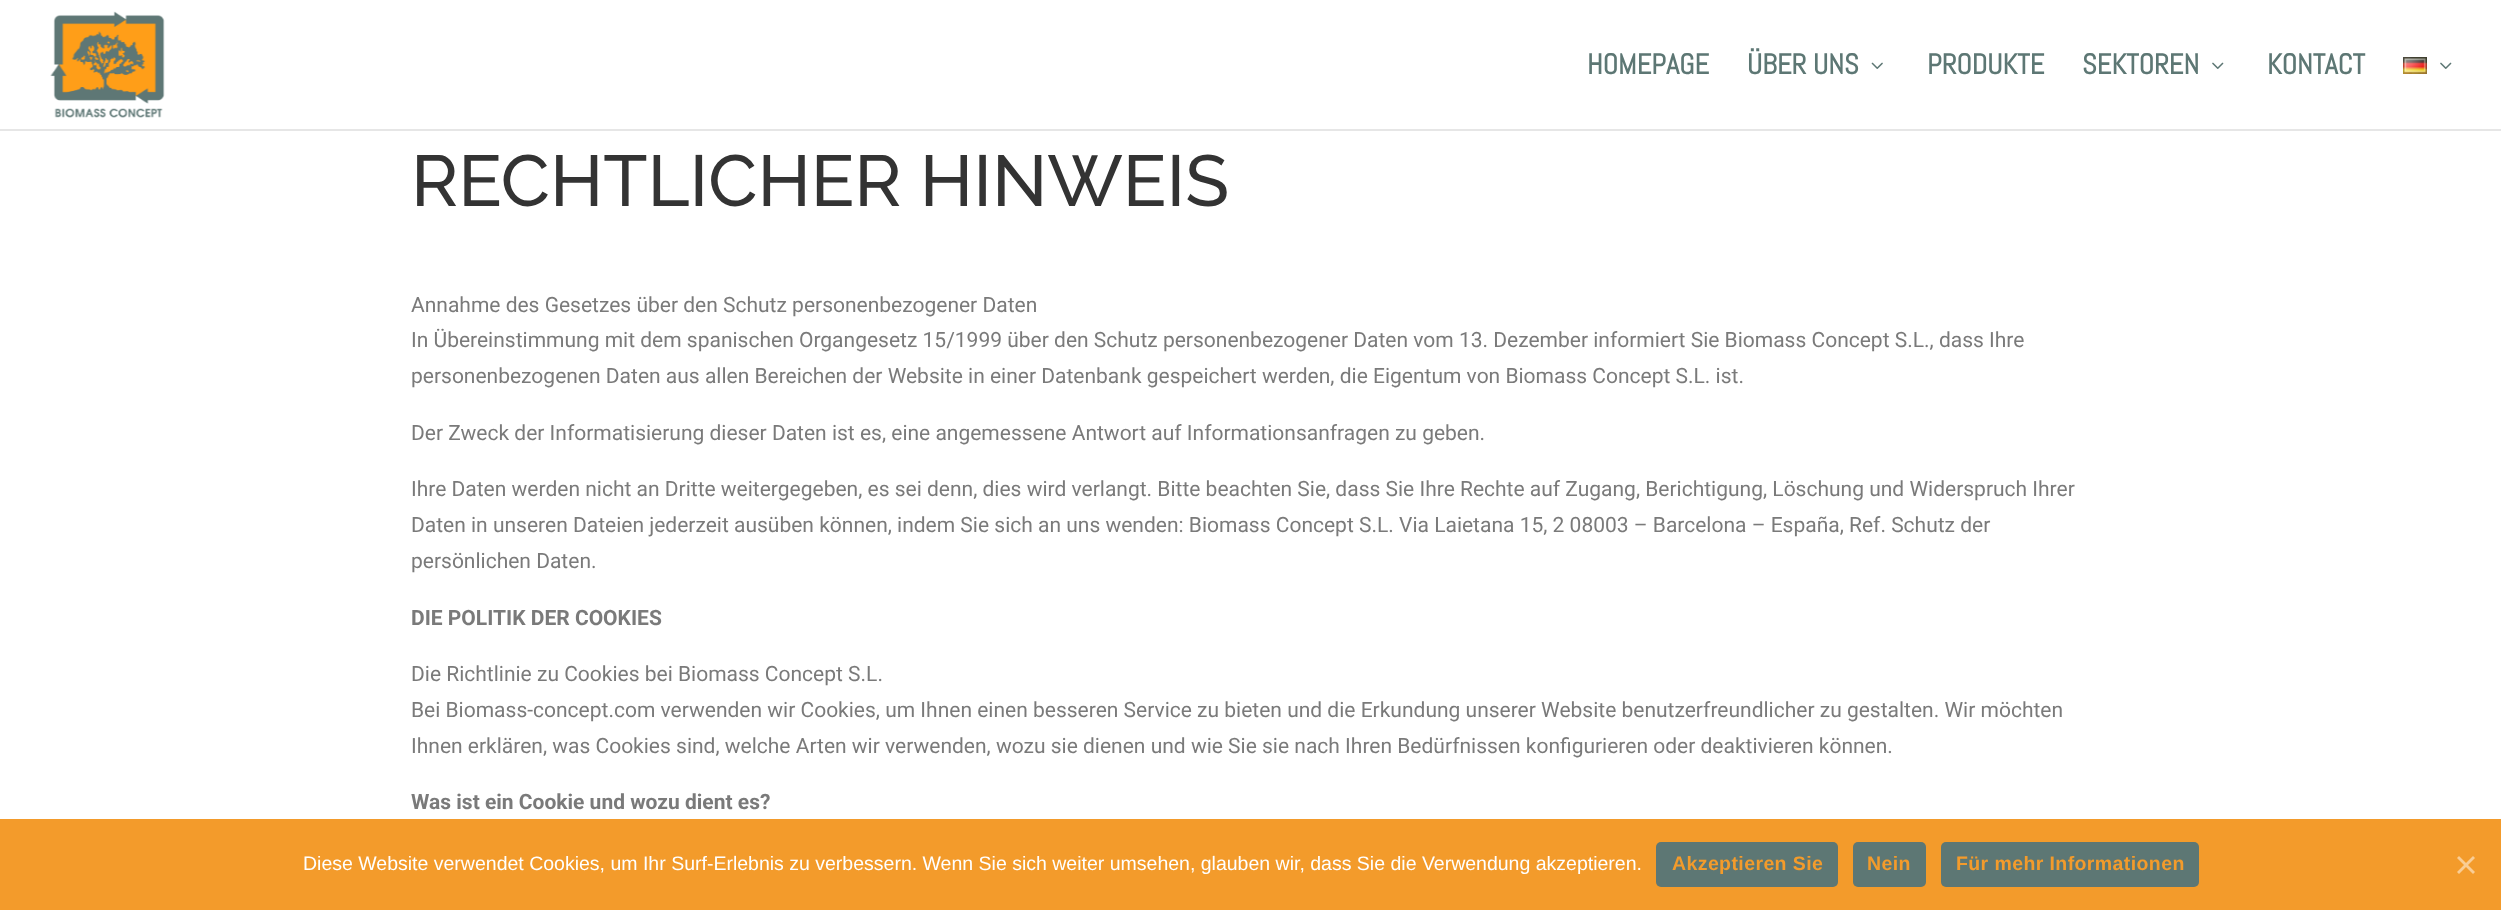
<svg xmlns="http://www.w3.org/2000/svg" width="2501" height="910">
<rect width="100%" height="100%" fill="#fff"/>
<rect y="129" width="2501" height="2" fill="#e6e6e6"/>
<image x="50" y="11" width="115" height="107" href="media/1.png"/>
<text x="1587" y="74" style="font-family:Abel;font-size:28.5px;font-weight:bold;fill:#5d7774">HOMEPAGE</text>
<text x="1747" y="74" style="font-family:Abel;font-size:28.5px;font-weight:bold;fill:#5d7774">ÜBER UNS</text>
<image x="1871" y="62" width="12" height="7" href="media/2.png"/>
<text x="1927" y="74" style="font-family:Abel;font-size:28.5px;font-weight:bold;fill:#5d7774">PRODUKTE</text>
<text x="2082" y="74" style="font-family:Abel;font-size:28.5px;font-weight:bold;fill:#5d7774">SEKTOREN</text>
<image x="2212" y="62" width="12" height="7" href="media/3.png"/>
<text x="2267" y="74" style="font-family:Abel;font-size:28.5px;font-weight:bold;fill:#5d7774">KONTACT</text>
<image x="2403" y="57" width="24" height="17" href="media/4.png"/>
<image x="2440" y="62" width="12" height="7" href="media/3.png"/>
<text x="411" y="206" style="font-family:Raleway;font-size:72px;font-weight:500;fill:#333">RECHTLICHER HINWEIS</text>
<text x="411" y="312" style="font-family:Roboto;font-size:21px;fill:#7a7a7a">Annahme des Gesetzes über den Schutz personenbezogener Daten</text>
<text x="411" y="347" style="font-family:Roboto;font-size:21px;fill:#7a7a7a">In Übereinstimmung mit dem spanischen Organgesetz 15/1999 über den Schutz personenbezogener Daten vom 13. Dezember informiert Sie Biomass Concept S.L., dass Ihre</text>
<text x="411" y="383" style="font-family:Roboto;font-size:21px;fill:#7a7a7a">personenbezogenen Daten aus allen Bereichen der Website in einer Datenbank gespeichert werden, die Eigentum von Biomass Concept S.L. ist.</text>
<text x="411" y="440" style="font-family:Roboto;font-size:21px;fill:#7a7a7a">Der Zweck der Informatisierung dieser Daten ist es, eine angemessene Antwort auf Informationsanfragen zu geben.</text>
<text x="411" y="496" style="font-family:Roboto;font-size:21px;fill:#7a7a7a">Ihre Daten werden nicht an Dritte weitergegeben, es sei denn, dies wird verlangt. Bitte beachten Sie, dass Sie Ihre Rechte auf Zugang, Berichtigung, Löschung und Widerspruch Ihrer</text>
<text x="411" y="532" style="font-family:Roboto;font-size:21px;fill:#7a7a7a">Daten in unseren Dateien jederzeit ausüben können, indem Sie sich an uns wenden: Biomass Concept S.L. Via Laietana 15, 2 08003 – Barcelona – España, Ref. Schutz der</text>
<text x="411" y="568" style="font-family:Roboto;font-size:21px;fill:#7a7a7a">persönlichen Daten.</text>
<text x="411" y="625" style="font-family:Roboto;font-size:21px;font-weight:bold;fill:#7a7a7a">DIE POLITIK DER COOKIES</text>
<text x="411" y="681" style="font-family:Roboto;font-size:21px;fill:#7a7a7a">Die Richtlinie zu Cookies bei Biomass Concept S.L.</text>
<text x="411" y="717" style="font-family:Roboto;font-size:21px;fill:#7a7a7a">Bei Biomass-concept.com verwenden wir Cookies, um Ihnen einen besseren Service zu bieten und die Erkundung unserer Website benutzerfreundlicher zu gestalten. Wir möchten</text>
<text x="411" y="753" style="font-family:Roboto;font-size:21px;fill:#7a7a7a">Ihnen erklären, was Cookies sind, welche Arten wir verwenden, wozu sie dienen und wie Sie sie nach Ihren Bedürfnissen konfigurieren oder deaktivieren können.</text>
<text x="411" y="809" style="font-family:Roboto;font-size:21px;font-weight:bold;fill:#7a7a7a">Was ist ein Cookie und wozu dient es?</text>
<rect y="819" width="2501" height="91" fill="#f39b2b"/>
<text x="303" y="870" style="font-family:Liberation Sans;font-size:19.5px;fill:#fff">Diese Website verwendet Cookies, um Ihr Surf-Erlebnis zu verbessern. Wenn Sie sich weiter umsehen, glauben wir, dass Sie die Verwendung akzeptieren.</text>
<rect x="1656" y="842" width="182" height="45" rx="5" fill="#5d7774"/>
<text x="1672" y="870" style="font-family:Liberation Sans;font-size:19.5px;font-weight:bold;letter-spacing:0.4px;fill:#f39b2b">Akzeptieren Sie</text>
<rect x="1853" y="842" width="73" height="45" rx="5" fill="#5d7774"/>
<text x="1867" y="870" style="font-family:Liberation Sans;font-size:19.5px;font-weight:bold;letter-spacing:0.4px;fill:#f39b2b">Nein</text>
<rect x="1941" y="842" width="258" height="45" rx="5" fill="#5d7774"/>
<text x="1956" y="870" style="font-family:Liberation Sans;font-size:19.5px;font-weight:bold;letter-spacing:0.4px;fill:#f39b2b">Für mehr Informationen</text>
<path d="M2473 856l2 2l-16 16l-2-2z" fill="#f9cd95"/>
<path d="M2457 858l2-2l16 16l-2 2z" fill="#f9cd95"/>
</svg>
